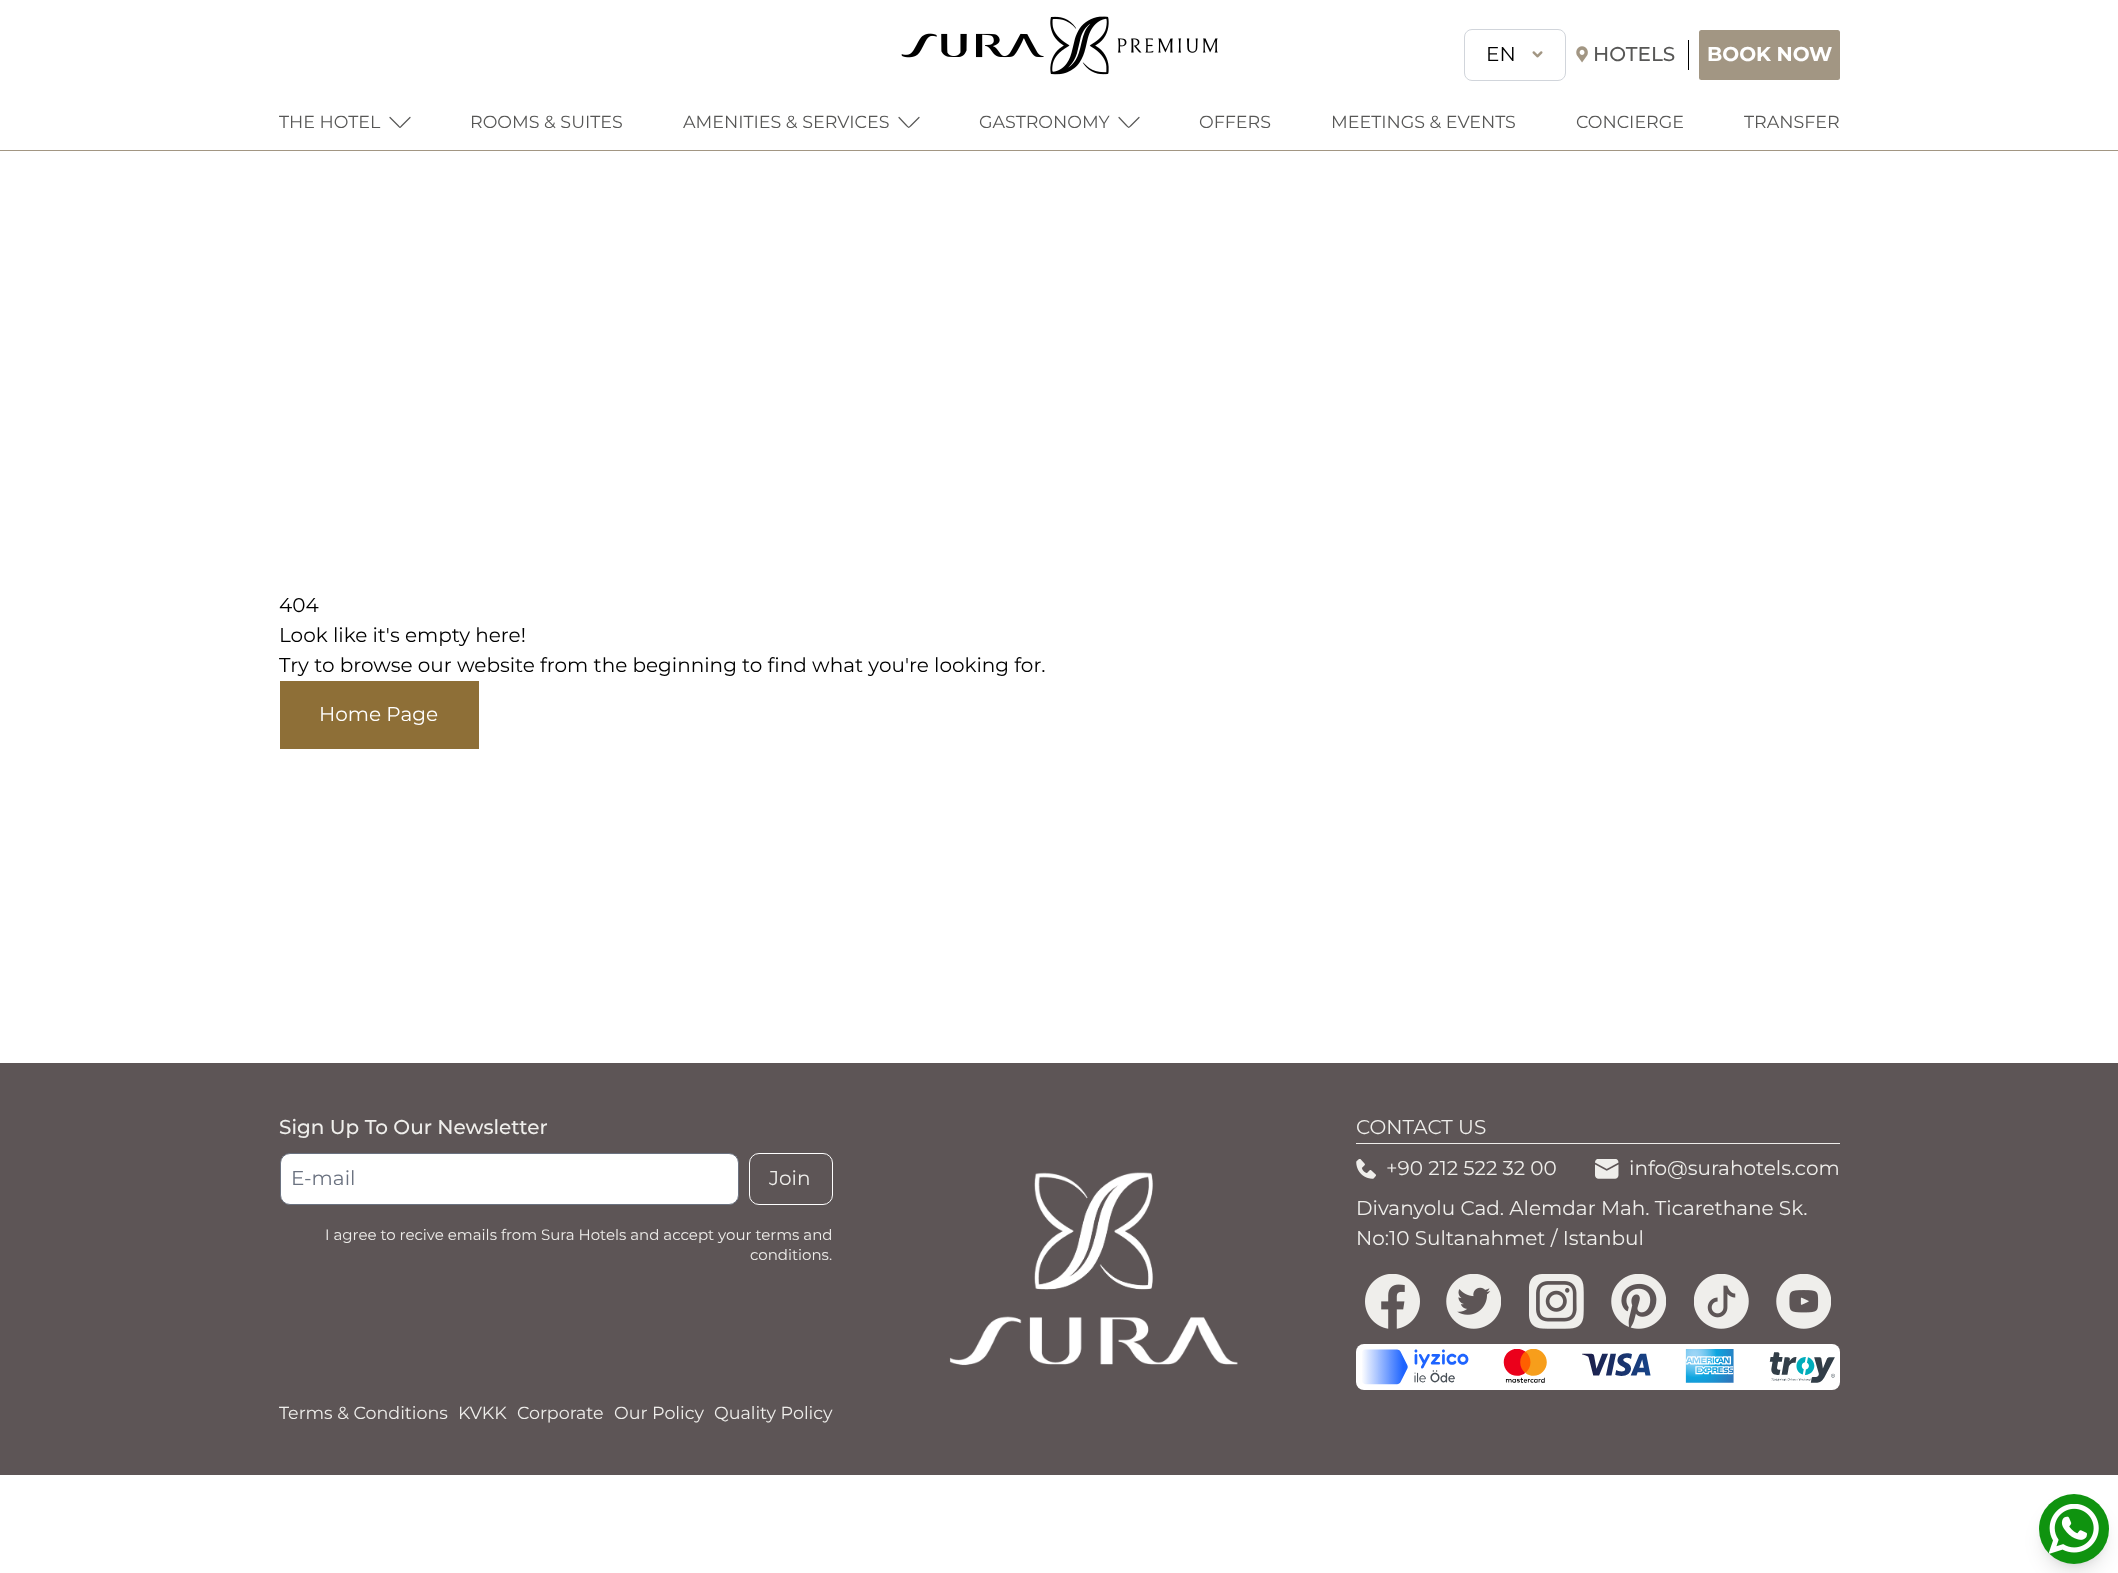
<svg xmlns="http://www.w3.org/2000/svg" width="2118" height="1573">
<rect width="100%" height="100%" fill="#fff"/>
<rect y="150" width="2118" height="1" fill="#a29683"/>
<image x="901" y="16" width="317" height="59" href="media/1.png"/>
<rect x="1464.5" y="29.5" width="101" height="51" rx="7.5" fill="none" stroke="#d1d5db"/>
<text x="1486" y="61" style="font-family:Montserrat;font-size:20px;fill:#000">EN</text>
<image x="1532" y="51" width="11" height="7" href="media/2.png"/>
<rect x="1688" y="40" width="1" height="30" fill="#000"/>
<image x="1576" y="46" width="12" height="17" href="media/3.png"/>
<text x="1593" y="61" style="font-family:Montserrat;font-size:20px;font-weight:500;fill:#575756">HOTELS</text>
<rect x="1699" y="30" width="141" height="50" rx="2.5" fill="#a29683"/>
<text x="1707" y="61" style="font-family:Montserrat;font-size:20px;font-weight:bold;fill:#fff">BOOK NOW</text>
<text x="279" y="128" style="font-family:Montserrat;font-size:17.5px;fill:#575756">THE HOTEL</text>
<path d="M410 117.5l-8 8c-2.5 2.5-1.5 2.5-4 0l-8-8" fill="none" stroke="#575756" stroke-width="1.2" stroke-linecap="round" stroke-linejoin="round"/>
<text x="470" y="128" style="font-family:Montserrat;font-size:17.5px;fill:#575756">ROOMS &amp; SUITES</text>
<text x="683" y="128" style="font-family:Montserrat;font-size:17.5px;fill:#575756">AMENITIES &amp; SERVICES</text>
<path d="M919 117.5l-8 8c-2.5 2.5-2 2.5-4.5 0l-7.5-8" fill="none" stroke="#575756" stroke-width="1.2" stroke-linecap="round" stroke-linejoin="round"/>
<text x="979" y="128" style="font-family:Montserrat;font-size:17.5px;fill:#575756">GASTRONOMY</text>
<path d="M1139 117.5l-8 8c-2.5 2.5-2 2.5-4.5 0l-7.5-8" fill="none" stroke="#575756" stroke-width="1.2" stroke-linecap="round" stroke-linejoin="round"/>
<text x="1199" y="128" style="font-family:Montserrat;font-size:17.5px;fill:#575756">OFFERS</text>
<text x="1331" y="128" style="font-family:Montserrat;font-size:17.5px;fill:#575756">MEETINGS &amp; EVENTS</text>
<text x="1576" y="128" style="font-family:Montserrat;font-size:17.5px;fill:#575756">CONCIERGE</text>
<text x="1744" y="128" style="font-family:Montserrat;font-size:17.5px;fill:#575756">TRANSFER</text>
<text x="279" y="612" style="font-family:Montserrat;font-size:20px;fill:#000">404</text>
<text x="279" y="642" style="font-family:Montserrat;font-size:20px;fill:#000">Look like it's empty here!</text>
<text x="279" y="672" style="font-family:Montserrat;font-size:20px;fill:#000">Try to browse our website from the beginning to find what you're looking for.</text>
<rect x="280" y="681" width="199" height="68" fill="#8e6f37"/>
<text x="319" y="721" style="font-family:Montserrat;font-size:20px;fill:#fff">Home Page</text>
<rect y="1063" width="2118" height="412" fill="#5d5556"/>
<text x="279" y="1134" style="font-family:Montserrat;font-size:20px;font-weight:500;fill:#efeeeb">Sign Up To Our Newsletter</text>
<rect x="280.5" y="1153.5" width="458" height="51" rx="9.5" fill="#fff" stroke="#6b7280"/>
<text x="291" y="1185" style="font-family:Montserrat;font-size:20px;fill:#6b7280">E-mail</text>
<rect x="749.5" y="1153.5" width="83" height="51" rx="9.5" fill="none" stroke="#fff"/>
<text x="769" y="1185" style="font-family:Montserrat;font-size:20px;fill:#efeeeb">Join</text>
<text x="325" y="1240" style="font-family:Montserrat;font-size:15px;fill:#efeeeb">I agree to recive emails from Sura Hotels and accept your terms and</text>
<text x="750" y="1260" style="font-family:Montserrat;font-size:15px;fill:#efeeeb">conditions.</text>
<text x="279" y="1419" style="font-family:Montserrat;font-size:17.5px;fill:#efeeeb">Terms &amp; Conditions</text>
<text x="458" y="1419" style="font-family:Montserrat;font-size:17.5px;fill:#efeeeb">KVKK</text>
<text x="517" y="1419" style="font-family:Montserrat;font-size:17.5px;fill:#efeeeb">Corporate</text>
<text x="614" y="1419" style="font-family:Montserrat;font-size:17.5px;fill:#efeeeb">Our Policy</text>
<text x="714" y="1419" style="font-family:Montserrat;font-size:17.5px;fill:#efeeeb">Quality Policy</text>
<image x="949" y="1172" width="289" height="194" href="media/4.png"/>
<rect x="1356" y="1143" width="484" height="1" fill="#efeeeb"/>
<text x="1356" y="1134" style="font-family:Montserrat;font-size:20px;fill:#efeeeb">CONTACT US</text>
<image x="1356" y="1159" width="20" height="20" href="media/5.png"/>
<text x="1386" y="1175" style="font-family:Montserrat;font-size:20px;fill:#efeeeb">+90 212 522 32 00</text>
<image x="1595" y="1159" width="24" height="20" href="media/6.png"/>
<text x="1629" y="1175" style="font-family:Montserrat;font-size:20px;fill:#efeeeb">info@surahotels.com</text>
<text x="1356" y="1215" style="font-family:Montserrat;font-size:20px;fill:#efeeeb">Divanyolu Cad. Alemdar Mah. Ticarethane Sk.</text>
<text x="1356" y="1245" style="font-family:Montserrat;font-size:20px;fill:#efeeeb">No:10 Sultanahmet / Istanbul</text>
<image x="1365" y="1274" width="55" height="55" href="media/7.png"/>
<image x="1446" y="1274" width="55" height="55" href="media/8.png"/>
<image x="1529" y="1274" width="55" height="55" href="media/9.png"/>
<image x="1611" y="1274" width="55" height="55" href="media/10.png"/>
<image x="1694" y="1274" width="55" height="55" href="media/11.png"/>
<image x="1776" y="1274" width="55" height="55" href="media/12.png"/>
<rect x="1356" y="1344" width="484" height="46" rx="8" fill="#fff"/>
<image x="1362" y="1349" width="473" height="36" href="media/13.png"/>
<rect x="2044" y="1504" width="60" height="60" rx="30" fill="#0000001a" filter="blur(4px)"/>
<rect x="2043" y="1510" width="62" height="63" rx="31" fill="#0000001a" filter="blur(9.5px)"/>
<circle cx="2074" cy="1529" r="35" fill="#0f930f"/>
<image x="2049" y="1504" width="50" height="50" href="media/14.png"/>
</svg>
